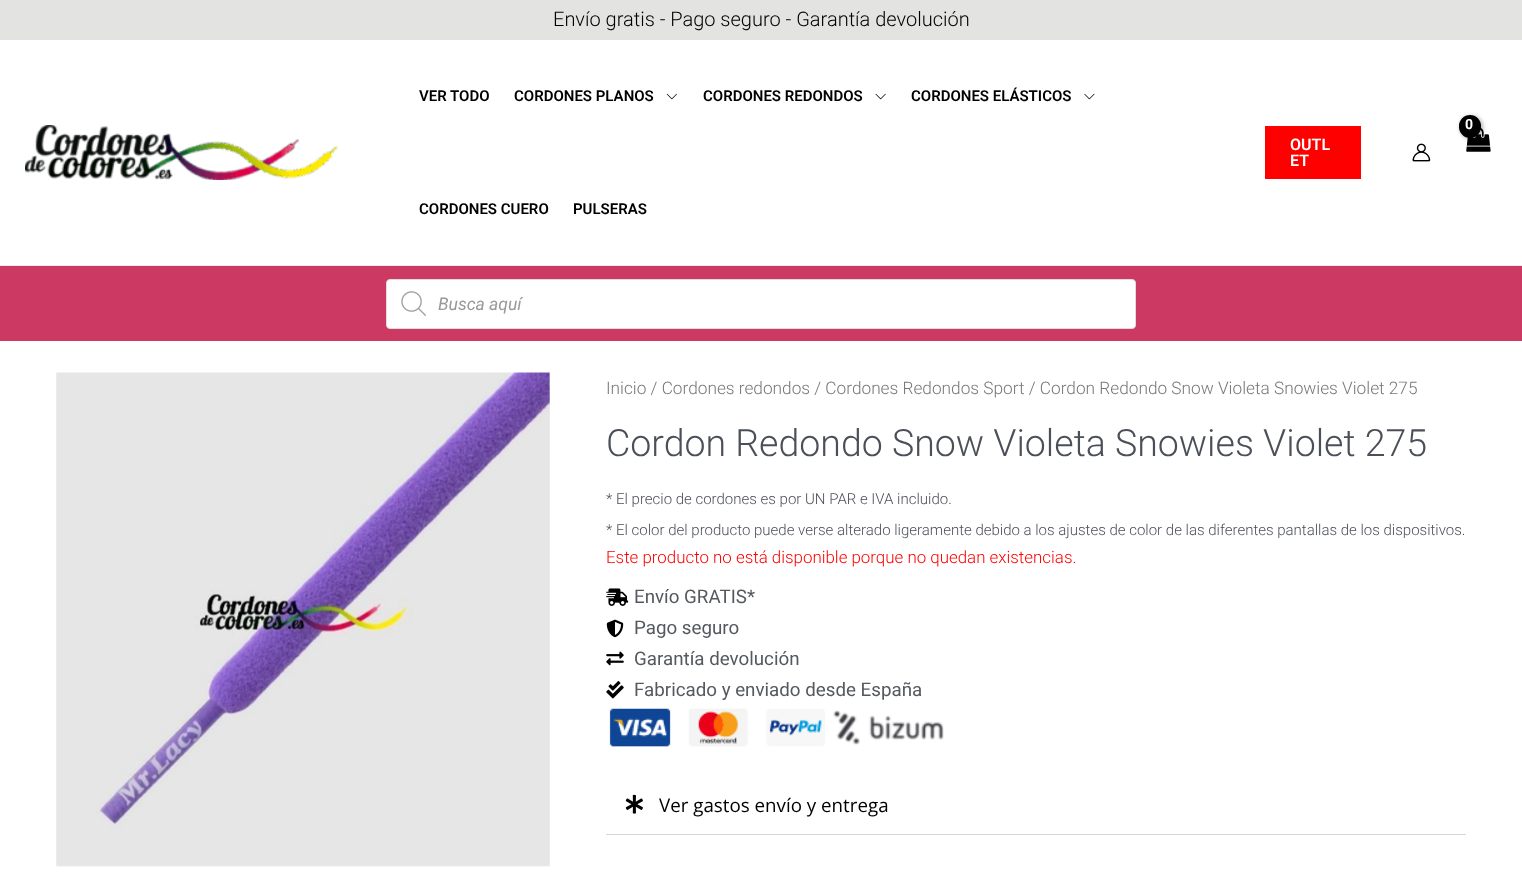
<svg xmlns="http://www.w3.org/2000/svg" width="1522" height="875">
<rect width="100%" height="100%" fill="#fff"/>
<rect width="1522" height="40" fill="#e3e3e1"/>
<text x="553" y="26" style="font-family:Roboto;font-size:20px;font-weight:300;fill:#000">Envío gratis - Pago seguro - Garantía devolución</text>
<rect y="265" width="1522" height="1" fill="#eaeaea"/>
<image x="25" y="125" width="313" height="55" href="media/1.png"/>
<text x="419" y="101" style="font-family:Roboto;font-size:15px;font-weight:600;fill:#000">VER TODO</text>
<text x="514" y="101" style="font-family:Roboto;font-size:15px;font-weight:600;fill:#000">CORDONES PLANOS</text>
<image x="666" y="93" width="11" height="7" href="media/2.png"/>
<text x="703" y="101" style="font-family:Roboto;font-size:15px;font-weight:600;fill:#000">CORDONES REDONDOS</text>
<image x="875" y="93" width="11" height="7" href="media/3.png"/>
<text x="911" y="101" style="font-family:Roboto;font-size:15px;font-weight:600;fill:#000">CORDONES ELÁSTICOS</text>
<image x="1084" y="93" width="11" height="7" href="media/4.png"/>
<text x="419" y="214" style="font-family:Roboto;font-size:15px;font-weight:600;fill:#000">CORDONES CUERO</text>
<text x="573" y="214" style="font-family:Roboto;font-size:15px;font-weight:600;fill:#000">PULSERAS</text>
<rect x="1265" y="126" width="96" height="53" fill="#f00"/>
<text x="1290" y="150" style="font-family:Roboto;font-size:16px;font-weight:600;fill:#fff">OUTL</text>
<text x="1290" y="166" style="font-family:Roboto;font-size:16px;font-weight:600;fill:#fff">ET</text>
<image x="1466" y="127" width="25" height="25" href="media/5.png"/>
<rect x="1460" y="116" width="23" height="23" rx="11.5" fill="#0000004d" filter="blur(2px)"/>
<rect x="1459" y="115" width="22" height="23" rx="11" fill="#000"/>
<text x="1465" y="129" style="font-family:Roboto;font-size:14px;font-weight:bold;letter-spacing:-1px;fill:#fff">0</text>
<image x="1412" y="143" width="19" height="19" href="media/6.png"/>
<rect y="266" width="1522" height="75" fill="#cc3962"/>
<rect x="386.5" y="279.5" width="749" height="49" rx="3.5" fill="#fff" stroke="#ddd"/>
<image x="401" y="291" width="25" height="25" href="media/7.png"/>
<text x="438" y="310" style="font-family:Roboto;font-size:17.5px;font-style:italic;fill:#999">Busca aquí</text>
<image x="56" y="372" width="494" height="495" href="media/8.png"/>
<rect x="549" y="373" width="1" height="33" fill="#e4e4e430"/>
<text x="606" y="394" style="font-family:Roboto;font-size:17.25px;font-weight:300;fill:#777">Inicio / Cordones redondos / Cordones Redondos Sport / Cordon Redondo Snow Violeta Snowies Violet 275</text>
<text x="606" y="456" style="font-family:Roboto;font-size:37.5px;font-weight:300;fill:#4b4f58">Cordon Redondo Snow Violeta Snowies Violet 275</text>
<text x="606" y="504" style="font-family:Roboto;font-size:15px;font-weight:300;fill:#4b4f58">* El precio de cordones es por UN PAR e IVA incluido.</text>
<text x="606" y="535" style="font-family:Roboto;font-size:15px;font-weight:300;fill:#4b4f58">* El color del producto puede verse alterado ligeramente debido a los ajustes de color de las diferentes pantallas de los dispositivos.</text>
<text x="606" y="563" style="font-family:Roboto;font-size:16.9px;font-weight:300;fill:#f00">Este producto no está disponible porque no quedan existencias.</text>
<image x="606" y="588" width="23" height="18" href="media/9.png"/>
<text x="634" y="603" style="font-family:Roboto;font-size:18.75px;fill:#54595f">Envío GRATIS*</text>
<image x="606" y="619" width="18" height="19" href="media/10.png"/>
<text x="634" y="634" style="font-family:Roboto;font-size:18.75px;fill:#54595f">Pago seguro</text>
<image x="606" y="651" width="18" height="15" href="media/11.png"/>
<text x="634" y="665" style="font-family:Roboto;font-size:18.75px;fill:#54595f">Garantía devolución</text>
<image x="606" y="681" width="18" height="18" href="media/12.png"/>
<text x="634" y="696" style="font-family:Roboto;font-size:18.75px;fill:#54595f">Fabricado y enviado desde España</text>
<image x="609" y="708" width="335" height="39" href="media/13.png"/>
<rect x="606" y="834" width="860" height="1" fill="#d5d8dc"/>
<image x="625" y="794" width="18" height="20" href="media/14.png"/>
<text x="659" y="812" style="font-family:Open Sans;font-size:18.75px;fill:#000">Ver gastos envío y entrega</text>
</svg>
